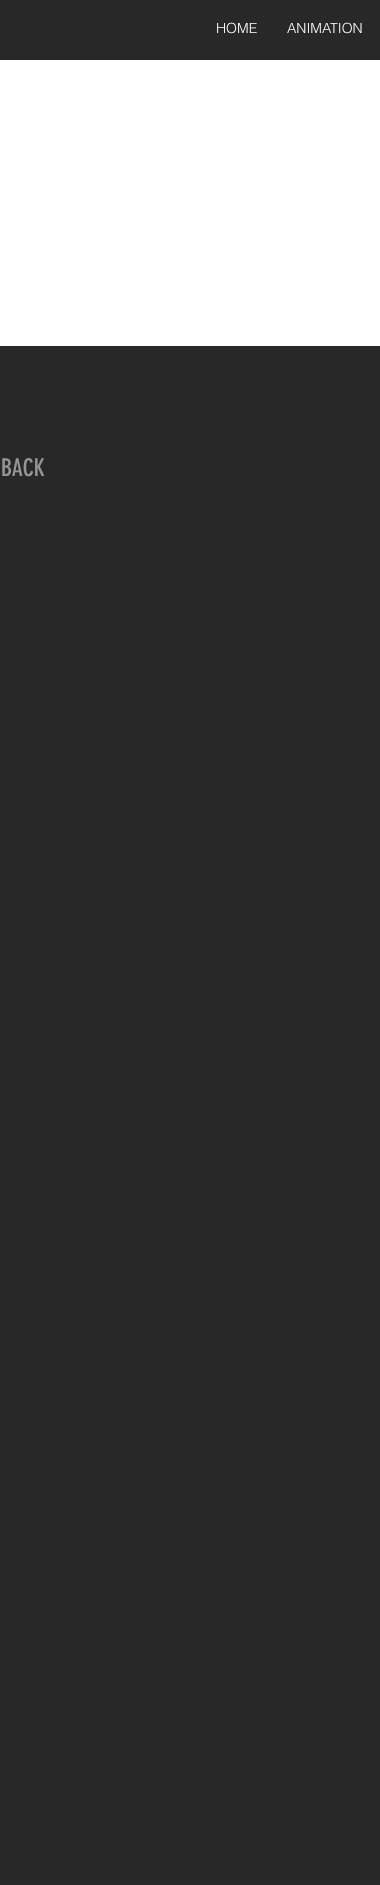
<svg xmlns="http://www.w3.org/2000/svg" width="380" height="1885">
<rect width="100%" height="100%" fill="#fff"/>
<rect width="380" height="60" fill="#282828"/>
<text x="216" y="33" style="font-family:helvetica;font-size:14px;font-weight:300;fill:#fff">HOME</text>
<text x="287" y="33" style="font-family:helvetica;font-size:14px;font-weight:300;fill:#fff">ANIMATION</text>
<rect y="346" width="380" height="1539" fill="#282828"/>
<text x="1" y="476" style="font-family:'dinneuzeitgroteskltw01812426';font-size:24px;fill:#969696">BACK</text>
</svg>
